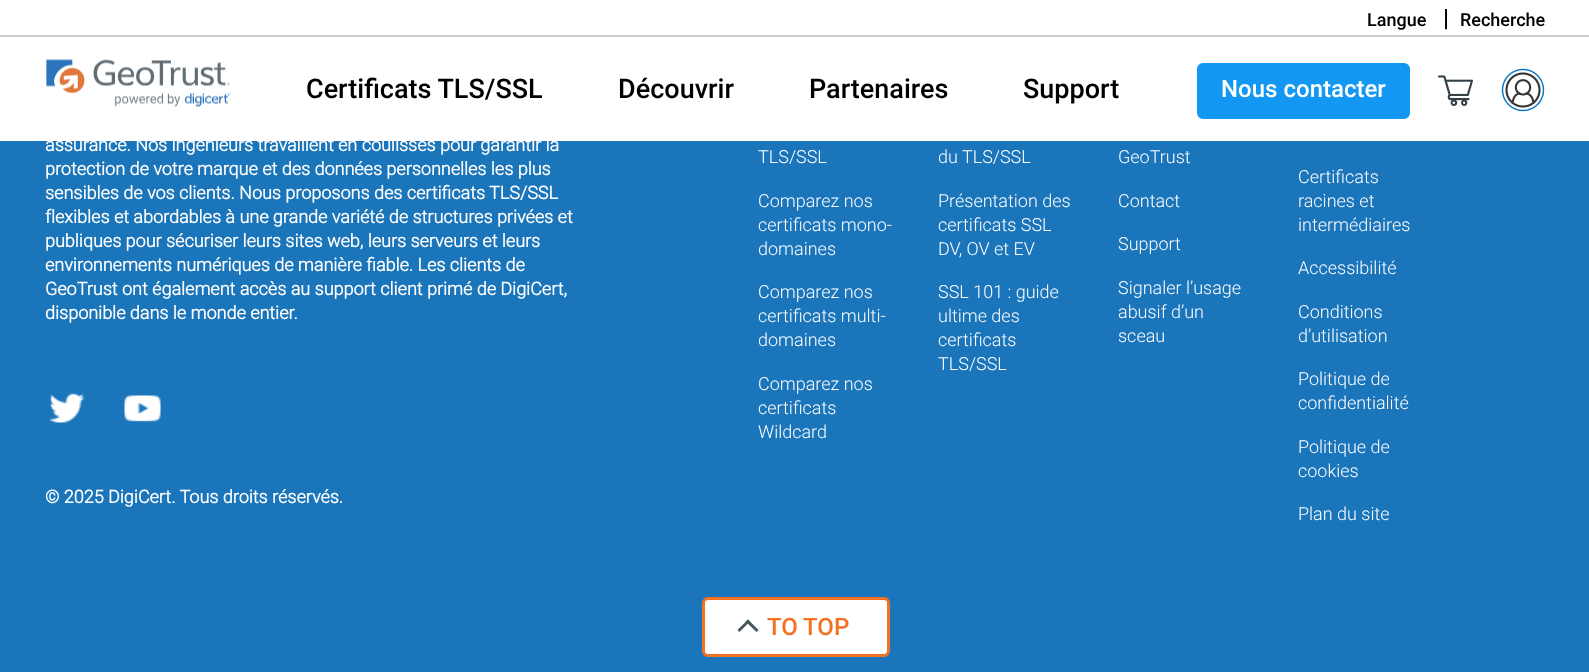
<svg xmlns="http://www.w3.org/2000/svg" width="1589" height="672">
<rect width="100%" height="100%" fill="#1a75bb"/>
<rect width="1589" height="141" fill="#fff"/>
<rect y="35" width="1589" height="2" fill="#ccc"/>
<text x="1367" y="26" style="font-family:Roboto;font-size:18px;font-weight:500;fill:#000">Langue</text>
<text x="1443" y="26" style="font-family:Roboto;font-size:24px;font-weight:500;fill:#000">|</text>
<text x="1460" y="26" style="font-family:Roboto;font-size:18px;font-weight:500;fill:#000">Recherche</text>
<image x="46" y="59" width="184" height="48" href="media/1.png"/>
<text x="306" y="98" style="font-family:Roboto;font-size:27px;font-weight:500;fill:#000">Certificats TLS/SSL</text>
<text x="618" y="98" style="font-family:Roboto;font-size:27px;font-weight:500;fill:#000">Découvrir</text>
<text x="809" y="98" style="font-family:Roboto;font-size:27px;font-weight:500;fill:#000">Partenaires</text>
<text x="1023" y="98" style="font-family:Roboto;font-size:27px;font-weight:500;fill:#000">Support</text>
<rect x="1198" y="64" width="211" height="54" rx="5" fill="#1297f3" stroke="#1297f3" stroke-width="2"/>
<text x="1221" y="97" style="font-family:Roboto;font-size:24px;font-weight:500;fill:#fff">Nous contacter</text>
<image x="1438" y="75" width="35" height="31" href="media/2.png"/>
<image x="1501" y="68" width="44" height="44" href="media/3.png"/>
<text x="45" y="151" style="font-family:Roboto;font-size:18px;font-weight:bold;fill:#fff">assurance. Nos ingénieurs travaillent en coulisses pour garantir la</text>
<text x="45" y="175" style="font-family:Roboto;font-size:18px;font-weight:bold;fill:#fff">protection de votre marque et des données personnelles les plus</text>
<text x="45" y="199" style="font-family:Roboto;font-size:18px;font-weight:bold;fill:#fff">sensibles de vos clients. Nous proposons des certificats TLS/SSL</text>
<text x="45" y="223" style="font-family:Roboto;font-size:18px;font-weight:bold;fill:#fff">flexibles et abordables à une grande variété de structures privées et</text>
<text x="45" y="247" style="font-family:Roboto;font-size:18px;font-weight:bold;fill:#fff">publiques pour sécuriser leurs sites web, leurs serveurs et leurs</text>
<text x="45" y="271" style="font-family:Roboto;font-size:18px;font-weight:bold;fill:#fff">environnements numériques de manière fiable. Les clients de</text>
<text x="45" y="295" style="font-family:Roboto;font-size:18px;font-weight:bold;fill:#fff">GeoTrust ont également accès au support client primé de DigiCert,</text>
<text x="45" y="319" style="font-family:Roboto;font-size:18px;font-weight:bold;fill:#fff">disponible dans le monde entier.</text>
<image x="49" y="393" width="36" height="30" href="media/4.png"/>
<image x="124" y="395" width="37" height="27" href="media/5.png"/>
<text x="45" y="503" style="font-family:Roboto;font-size:18px;font-weight:bold;fill:#fff">© 2025 DigiCert. Tous droits réservés.</text>
<text x="758" y="163" style="font-family:Roboto;font-size:18px;font-weight:300;fill:#fff">TLS/SSL</text>
<text x="758" y="207" style="font-family:Roboto;font-size:18px;font-weight:300;fill:#fff">Comparez nos</text>
<text x="758" y="231" style="font-family:Roboto;font-size:18px;font-weight:300;fill:#fff">certificats mono-</text>
<text x="758" y="255" style="font-family:Roboto;font-size:18px;font-weight:300;fill:#fff">domaines</text>
<text x="758" y="298" style="font-family:Roboto;font-size:18px;font-weight:300;fill:#fff">Comparez nos</text>
<text x="758" y="322" style="font-family:Roboto;font-size:18px;font-weight:300;fill:#fff">certificats multi-</text>
<text x="758" y="346" style="font-family:Roboto;font-size:18px;font-weight:300;fill:#fff">domaines</text>
<text x="758" y="390" style="font-family:Roboto;font-size:18px;font-weight:300;fill:#fff">Comparez nos</text>
<text x="758" y="414" style="font-family:Roboto;font-size:18px;font-weight:300;fill:#fff">certificats</text>
<text x="758" y="438" style="font-family:Roboto;font-size:18px;font-weight:300;fill:#fff">Wildcard</text>
<text x="938" y="163" style="font-family:Roboto;font-size:18px;font-weight:300;fill:#fff">du TLS/SSL</text>
<text x="938" y="207" style="font-family:Roboto;font-size:18px;font-weight:300;fill:#fff">Présentation des</text>
<text x="938" y="231" style="font-family:Roboto;font-size:18px;font-weight:300;fill:#fff">certificats SSL</text>
<text x="938" y="255" style="font-family:Roboto;font-size:18px;font-weight:300;fill:#fff">DV, OV et EV</text>
<text x="938" y="298" style="font-family:Roboto;font-size:18px;font-weight:300;fill:#fff">SSL 101 : guide</text>
<text x="938" y="322" style="font-family:Roboto;font-size:18px;font-weight:300;fill:#fff">ultime des</text>
<text x="938" y="346" style="font-family:Roboto;font-size:18px;font-weight:300;fill:#fff">certificats</text>
<text x="938" y="370" style="font-family:Roboto;font-size:18px;font-weight:300;fill:#fff">TLS/SSL</text>
<text x="1118" y="163" style="font-family:Roboto;font-size:18px;font-weight:300;fill:#fff">GeoTrust</text>
<text x="1118" y="207" style="font-family:Roboto;font-size:18px;font-weight:300;fill:#fff">Contact</text>
<text x="1118" y="250" style="font-family:Roboto;font-size:18px;font-weight:300;fill:#fff">Support</text>
<text x="1118" y="294" style="font-family:Roboto;font-size:18px;font-weight:300;fill:#fff">Signaler l’usage</text>
<text x="1118" y="318" style="font-family:Roboto;font-size:18px;font-weight:300;fill:#fff">abusif d’un</text>
<text x="1118" y="342" style="font-family:Roboto;font-size:18px;font-weight:300;fill:#fff">sceau</text>
<text x="1298" y="183" style="font-family:Roboto;font-size:18px;font-weight:300;fill:#fff">Certificats</text>
<text x="1298" y="207" style="font-family:Roboto;font-size:18px;font-weight:300;fill:#fff">racines et</text>
<text x="1298" y="231" style="font-family:Roboto;font-size:18px;font-weight:300;fill:#fff">intermédiaires</text>
<text x="1298" y="274" style="font-family:Roboto;font-size:18px;font-weight:300;fill:#fff">Accessibilité</text>
<text x="1298" y="318" style="font-family:Roboto;font-size:18px;font-weight:300;fill:#fff">Conditions</text>
<text x="1298" y="342" style="font-family:Roboto;font-size:18px;font-weight:300;fill:#fff">d’utilisation</text>
<text x="1298" y="385" style="font-family:Roboto;font-size:18px;font-weight:300;fill:#fff">Politique de</text>
<text x="1298" y="409" style="font-family:Roboto;font-size:18px;font-weight:300;fill:#fff">confidentialité</text>
<text x="1298" y="453" style="font-family:Roboto;font-size:18px;font-weight:300;fill:#fff">Politique de</text>
<text x="1298" y="477" style="font-family:Roboto;font-size:18px;font-weight:300;fill:#fff">cookies</text>
<text x="1298" y="520" style="font-family:Roboto;font-size:18px;font-weight:300;fill:#fff">Plan du site</text>
<rect x="703.5" y="598.5" width="185" height="57" rx="4.5" fill="#fff" stroke="#f37121" stroke-width="3"/>
<path d="M739.5 632l-2-2l10.5-10.5l2 2z" fill="#48565e"/>
<path d="M756.5 632l-11-10.5l2.5-2l10.5 10.5z" fill="#48565e"/>
<text x="767" y="635" style="font-family:Roboto;font-size:24px;font-weight:500;fill:#f37121">TO TOP</text>
</svg>
